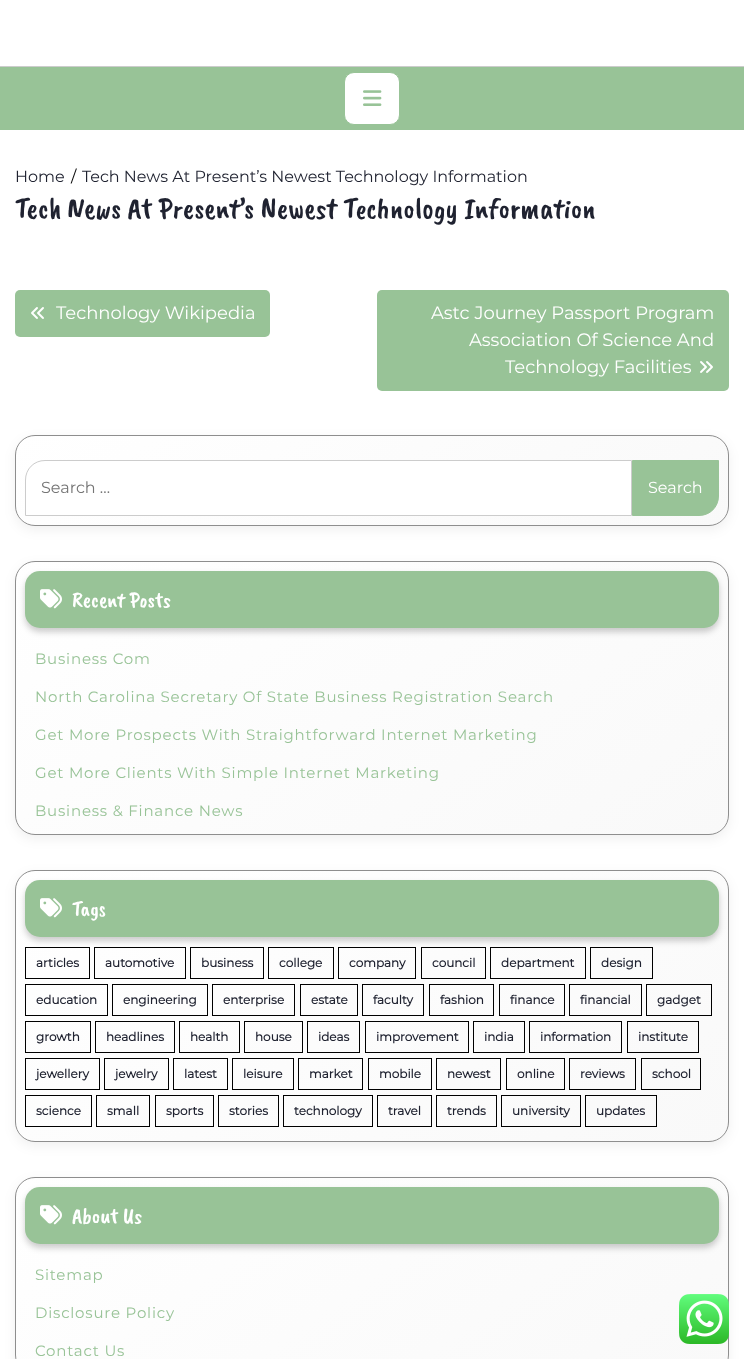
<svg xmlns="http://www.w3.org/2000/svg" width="744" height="1359">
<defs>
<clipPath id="clip1"><rect x="15" y="435" width="714" height="91" rx="20"/></clipPath>
<linearGradient id="g1" gradientUnits="userSpaceOnUse" x1="234" y1="283" x2="510" y2="678"><stop offset="0" stop-color="#fff"/><stop offset="1" stop-color="#f9f9f9"/></linearGradient>
<clipPath id="clip2"><rect x="15" y="561" width="714" height="274" rx="20"/></clipPath>
<linearGradient id="g2" gradientUnits="userSpaceOnUse" x1="191" y1="439" x2="553" y2="957"><stop offset="0" stop-color="#fff"/><stop offset="1" stop-color="#f9f9f9"/></linearGradient>
<clipPath id="clip3"><rect x="15" y="870" width="714" height="272" rx="20"/></clipPath>
<linearGradient id="g3" gradientUnits="userSpaceOnUse" x1="191" y1="748" x2="553" y2="1264"><stop offset="0" stop-color="#fff"/><stop offset="1" stop-color="#f9f9f9"/></linearGradient>
<clipPath id="clip4"><rect x="15" y="1177" width="714" height="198" rx="20"/></clipPath>
<linearGradient id="g4" gradientUnits="userSpaceOnUse" x1="209" y1="1043" x2="535" y2="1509"><stop offset="0" stop-color="#fff"/><stop offset="1" stop-color="#f9f9f9"/></linearGradient>
</defs>
<rect width="100%" height="100%" fill="#fff"/>
<rect y="66" width="744" height="1" fill="#ccc"/>
<rect y="67" width="744" height="63" fill="#98c397"/>
<rect x="344.5" y="72.5" width="55" height="52" rx="9.5" fill="#fff" stroke="#98c397"/>
<image x="363" y="90" width="19" height="16" href="media/1.png"/>
<text x="15" y="182" style="font-family:Montserrat;font-size:16px;fill:#1f2230">Home</text>
<text x="71" y="182" style="font-family:Montserrat;font-size:16px;fill:#000">/</text>
<text x="82" y="182" style="font-family:Montserrat;font-size:16px;fill:#1f2230">Tech News At Present’s Newest Technology Information</text>
<text x="15" y="218" style="font-family:Caveat Brush;font-size:30px;fill:#1f2230">Tech News At Present’s Newest Technology Information</text>
<rect x="15" y="290" width="255" height="47" rx="5" fill="#98c397"/>
<image x="31" y="307" width="13" height="12" href="media/2.png"/>
<text x="56" y="319" style="font-family:Montserrat;font-size:18px;fill:#fff">Technology Wikipedia</text>
<rect x="377" y="290" width="352" height="101" rx="5" fill="#98c397"/>
<text x="431" y="319" style="font-family:Montserrat;font-size:18px;fill:#fff">Astc Journey Passport Program</text>
<text x="469" y="346" style="font-family:Montserrat;font-size:18px;fill:#fff">Association Of Science And</text>
<text x="505" y="373" style="font-family:Montserrat;font-size:18px;fill:#fff">Technology Facilities</text>
<image x="700" y="361" width="13" height="12" href="media/3.png"/>
<rect x="15" y="439" width="714" height="91" rx="20" fill="#0000000f" filter="blur(6px)"/>
<g clip-path="url(#clip1)">
<rect x="16" y="436" width="712" height="89" fill="url(#g1)"/>
</g>
<rect x="15.5" y="435.5" width="713" height="90" rx="19.5" fill="none" stroke="#8e8e8e"/>
<path d="M45 460.5h586.5v55h-606v-35.5c0-11 8.5-19.5 19.5-19.5z" fill="#fff" stroke="#ccc"/>
<text x="41" y="493" style="font-family:Montserrat;font-size:16px;fill:#757575">Search …</text>
<path d="M632.5 460.5h86v35.5c0 11-8.5 19.5-19.5 19.5h-66.5z" fill="#98c397" stroke="#98c397"/>
<text x="648" y="493" style="font-family:Montserrat;font-size:16px;fill:#fff">Search</text>
<rect x="15" y="565" width="714" height="274" rx="20" fill="#0000000f" filter="blur(6px)"/>
<g clip-path="url(#clip2)">
<rect x="16" y="562" width="712" height="272" fill="url(#g2)"/>
</g>
<rect x="15.5" y="561.5" width="713" height="273" rx="19.5" fill="none" stroke="#8e8e8e"/>
<rect x="25" y="575" width="694" height="57" rx="15" fill="#00000033" filter="blur(3px)"/>
<rect x="25" y="571" width="694" height="57" rx="15" fill="#98c397"/>
<image x="40" y="589" width="22" height="20" href="media/4.png"/>
<text x="72" y="607" style="font-family:Caveat Brush;font-size:22px;fill:#fff">Recent Posts</text>
<text x="35" y="664" style="font-family:Montserrat;font-size:15px;letter-spacing:0.8px;fill:#98c397">Business Com</text>
<text x="35" y="702" style="font-family:Montserrat;font-size:15px;letter-spacing:0.8px;fill:#98c397">North Carolina Secretary Of State Business Registration Search</text>
<text x="35" y="740" style="font-family:Montserrat;font-size:15px;letter-spacing:0.8px;fill:#98c397">Get More Prospects With Straightforward Internet Marketing</text>
<text x="35" y="778" style="font-family:Montserrat;font-size:15px;letter-spacing:0.8px;fill:#98c397">Get More Clients With Simple Internet Marketing</text>
<text x="35" y="816" style="font-family:Montserrat;font-size:15px;letter-spacing:0.8px;fill:#98c397">Business &amp; Finance News</text>
<rect x="15" y="874" width="714" height="272" rx="20" fill="#0000000f" filter="blur(6px)"/>
<g clip-path="url(#clip3)">
<rect x="16" y="871" width="712" height="270" fill="url(#g3)"/>
</g>
<rect x="15.5" y="870.5" width="713" height="271" rx="19.5" fill="none" stroke="#8e8e8e"/>
<rect x="25" y="884" width="694" height="57" rx="15" fill="#00000033" filter="blur(3px)"/>
<rect x="25" y="880" width="694" height="57" rx="15" fill="#98c397"/>
<image x="40" y="898" width="22" height="20" href="media/4.png"/>
<text x="72" y="916" style="font-family:Caveat Brush;font-size:22px;fill:#fff">Tags</text>
<rect x="25.5" y="947.5" width="64" height="31" fill="none" stroke="#000"/>
<text x="36" y="967" style="font-family:Montserrat;font-size:12px;font-weight:bold;fill:#1f2230">articles</text>
<rect x="94.5" y="947.5" width="91" height="31" fill="none" stroke="#000"/>
<text x="105" y="967" style="font-family:Montserrat;font-size:12px;font-weight:bold;fill:#1f2230">automotive</text>
<rect x="190.5" y="947.5" width="73" height="31" fill="none" stroke="#000"/>
<text x="201" y="967" style="font-family:Montserrat;font-size:12px;font-weight:bold;fill:#1f2230">business</text>
<rect x="268.5" y="947.5" width="65" height="31" fill="none" stroke="#000"/>
<text x="279" y="967" style="font-family:Montserrat;font-size:12px;font-weight:bold;fill:#1f2230">college</text>
<rect x="338.5" y="947.5" width="77" height="31" fill="none" stroke="#000"/>
<text x="349" y="967" style="font-family:Montserrat;font-size:12px;font-weight:bold;fill:#1f2230">company</text>
<rect x="421.5" y="947.5" width="64" height="31" fill="none" stroke="#000"/>
<text x="432" y="967" style="font-family:Montserrat;font-size:12px;font-weight:bold;fill:#1f2230">council</text>
<rect x="490.5" y="947.5" width="95" height="31" fill="none" stroke="#000"/>
<text x="501" y="967" style="font-family:Montserrat;font-size:12px;font-weight:bold;fill:#1f2230">department</text>
<rect x="590.5" y="947.5" width="62" height="31" fill="none" stroke="#000"/>
<text x="601" y="967" style="font-family:Montserrat;font-size:12px;font-weight:bold;fill:#1f2230">design</text>
<rect x="25.5" y="984.5" width="82" height="31" fill="none" stroke="#000"/>
<text x="36" y="1004" style="font-family:Montserrat;font-size:12px;font-weight:bold;fill:#1f2230">education</text>
<rect x="112.5" y="984.5" width="95" height="31" fill="none" stroke="#000"/>
<text x="123" y="1004" style="font-family:Montserrat;font-size:12px;font-weight:bold;fill:#1f2230">engineering</text>
<rect x="212.5" y="984.5" width="82" height="31" fill="none" stroke="#000"/>
<text x="223" y="1004" style="font-family:Montserrat;font-size:12px;font-weight:bold;fill:#1f2230">enterprise</text>
<rect x="300.5" y="984.5" width="57" height="31" fill="none" stroke="#000"/>
<text x="311" y="1004" style="font-family:Montserrat;font-size:12px;font-weight:bold;fill:#1f2230">estate</text>
<rect x="362.5" y="984.5" width="61" height="31" fill="none" stroke="#000"/>
<text x="373" y="1004" style="font-family:Montserrat;font-size:12px;font-weight:bold;fill:#1f2230">faculty</text>
<rect x="429.5" y="984.5" width="64" height="31" fill="none" stroke="#000"/>
<text x="440" y="1004" style="font-family:Montserrat;font-size:12px;font-weight:bold;fill:#1f2230">fashion</text>
<rect x="499.5" y="984.5" width="65" height="31" fill="none" stroke="#000"/>
<text x="510" y="1004" style="font-family:Montserrat;font-size:12px;font-weight:bold;fill:#1f2230">finance</text>
<rect x="569.5" y="984.5" width="72" height="31" fill="none" stroke="#000"/>
<text x="580" y="1004" style="font-family:Montserrat;font-size:12px;font-weight:bold;fill:#1f2230">financial</text>
<rect x="646.5" y="984.5" width="65" height="31" fill="none" stroke="#000"/>
<text x="657" y="1004" style="font-family:Montserrat;font-size:12px;font-weight:bold;fill:#1f2230">gadget</text>
<rect x="25.5" y="1021.5" width="65" height="31" fill="none" stroke="#000"/>
<text x="36" y="1041" style="font-family:Montserrat;font-size:12px;font-weight:bold;fill:#1f2230">growth</text>
<rect x="95.5" y="1021.5" width="79" height="31" fill="none" stroke="#000"/>
<text x="106" y="1041" style="font-family:Montserrat;font-size:12px;font-weight:bold;fill:#1f2230">headlines</text>
<rect x="179.5" y="1021.5" width="60" height="31" fill="none" stroke="#000"/>
<text x="190" y="1041" style="font-family:Montserrat;font-size:12px;font-weight:bold;fill:#1f2230">health</text>
<rect x="244.5" y="1021.5" width="58" height="31" fill="none" stroke="#000"/>
<text x="255" y="1041" style="font-family:Montserrat;font-size:12px;font-weight:bold;fill:#1f2230">house</text>
<rect x="307.5" y="1021.5" width="52" height="31" fill="none" stroke="#000"/>
<text x="318" y="1041" style="font-family:Montserrat;font-size:12px;font-weight:bold;fill:#1f2230">ideas</text>
<rect x="365.5" y="1021.5" width="103" height="31" fill="none" stroke="#000"/>
<text x="376" y="1041" style="font-family:Montserrat;font-size:12px;font-weight:bold;fill:#1f2230">improvement</text>
<rect x="473.5" y="1021.5" width="51" height="31" fill="none" stroke="#000"/>
<text x="484" y="1041" style="font-family:Montserrat;font-size:12px;font-weight:bold;fill:#1f2230">india</text>
<rect x="529.5" y="1021.5" width="92" height="31" fill="none" stroke="#000"/>
<text x="540" y="1041" style="font-family:Montserrat;font-size:12px;font-weight:bold;fill:#1f2230">information</text>
<rect x="627.5" y="1021.5" width="71" height="31" fill="none" stroke="#000"/>
<text x="638" y="1041" style="font-family:Montserrat;font-size:12px;font-weight:bold;fill:#1f2230">institute</text>
<rect x="25.5" y="1058.5" width="74" height="31" fill="none" stroke="#000"/>
<text x="36" y="1078" style="font-family:Montserrat;font-size:12px;font-weight:bold;fill:#1f2230">jewellery</text>
<rect x="104.5" y="1058.5" width="64" height="31" fill="none" stroke="#000"/>
<text x="115" y="1078" style="font-family:Montserrat;font-size:12px;font-weight:bold;fill:#1f2230">jewelry</text>
<rect x="173.5" y="1058.5" width="54" height="31" fill="none" stroke="#000"/>
<text x="184" y="1078" style="font-family:Montserrat;font-size:12px;font-weight:bold;fill:#1f2230">latest</text>
<rect x="232.5" y="1058.5" width="61" height="31" fill="none" stroke="#000"/>
<text x="243" y="1078" style="font-family:Montserrat;font-size:12px;font-weight:bold;fill:#1f2230">leisure</text>
<rect x="298.5" y="1058.5" width="64" height="31" fill="none" stroke="#000"/>
<text x="309" y="1078" style="font-family:Montserrat;font-size:12px;font-weight:bold;fill:#1f2230">market</text>
<rect x="368.5" y="1058.5" width="63" height="31" fill="none" stroke="#000"/>
<text x="379" y="1078" style="font-family:Montserrat;font-size:12px;font-weight:bold;fill:#1f2230">mobile</text>
<rect x="436.5" y="1058.5" width="64" height="31" fill="none" stroke="#000"/>
<text x="447" y="1078" style="font-family:Montserrat;font-size:12px;font-weight:bold;fill:#1f2230">newest</text>
<rect x="506.5" y="1058.5" width="58" height="31" fill="none" stroke="#000"/>
<text x="517" y="1078" style="font-family:Montserrat;font-size:12px;font-weight:bold;fill:#1f2230">online</text>
<rect x="569.5" y="1058.5" width="66" height="31" fill="none" stroke="#000"/>
<text x="580" y="1078" style="font-family:Montserrat;font-size:12px;font-weight:bold;fill:#1f2230">reviews</text>
<rect x="641.5" y="1058.5" width="59" height="31" fill="none" stroke="#000"/>
<text x="652" y="1078" style="font-family:Montserrat;font-size:12px;font-weight:bold;fill:#1f2230">school</text>
<rect x="25.5" y="1095.5" width="66" height="31" fill="none" stroke="#000"/>
<text x="36" y="1115" style="font-family:Montserrat;font-size:12px;font-weight:bold;fill:#1f2230">science</text>
<rect x="96.5" y="1095.5" width="53" height="31" fill="none" stroke="#000"/>
<text x="107" y="1115" style="font-family:Montserrat;font-size:12px;font-weight:bold;fill:#1f2230">small</text>
<rect x="155.5" y="1095.5" width="58" height="31" fill="none" stroke="#000"/>
<text x="166" y="1115" style="font-family:Montserrat;font-size:12px;font-weight:bold;fill:#1f2230">sports</text>
<rect x="218.5" y="1095.5" width="60" height="31" fill="none" stroke="#000"/>
<text x="229" y="1115" style="font-family:Montserrat;font-size:12px;font-weight:bold;fill:#1f2230">stories</text>
<rect x="283.5" y="1095.5" width="89" height="31" fill="none" stroke="#000"/>
<text x="294" y="1115" style="font-family:Montserrat;font-size:12px;font-weight:bold;fill:#1f2230">technology</text>
<rect x="377.5" y="1095.5" width="54" height="31" fill="none" stroke="#000"/>
<text x="388" y="1115" style="font-family:Montserrat;font-size:12px;font-weight:bold;fill:#1f2230">travel</text>
<rect x="436.5" y="1095.5" width="60" height="31" fill="none" stroke="#000"/>
<text x="447" y="1115" style="font-family:Montserrat;font-size:12px;font-weight:bold;fill:#1f2230">trends</text>
<rect x="501.5" y="1095.5" width="79" height="31" fill="none" stroke="#000"/>
<text x="512" y="1115" style="font-family:Montserrat;font-size:12px;font-weight:bold;fill:#1f2230">university</text>
<rect x="585.5" y="1095.5" width="71" height="31" fill="none" stroke="#000"/>
<text x="596" y="1115" style="font-family:Montserrat;font-size:12px;font-weight:bold;fill:#1f2230">updates</text>
<rect x="15" y="1181" width="714" height="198" rx="20" fill="#0000000f" filter="blur(6px)"/>
<g clip-path="url(#clip4)">
<rect x="16" y="1178" width="712" height="181" fill="url(#g4)"/>
</g>
<rect x="15.5" y="1177.5" width="713" height="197" rx="19.5" fill="none" stroke="#8e8e8e"/>
<rect x="25" y="1191" width="694" height="57" rx="15" fill="#00000033" filter="blur(3px)"/>
<rect x="25" y="1187" width="694" height="57" rx="15" fill="#98c397"/>
<image x="40" y="1205" width="22" height="20" href="media/4.png"/>
<text x="72" y="1223" style="font-family:Caveat Brush;font-size:22px;fill:#fff">About Us</text>
<text x="35" y="1280" style="font-family:Montserrat;font-size:15px;letter-spacing:0.8px;fill:#98c397">Sitemap</text>
<text x="35" y="1318" style="font-family:Montserrat;font-size:15px;letter-spacing:0.8px;fill:#98c397">Disclosure Policy</text>
<text x="35" y="1356" style="font-family:Montserrat;font-size:15px;letter-spacing:0.8px;fill:#98c397">Contact Us</text>
<image x="679" y="1294" width="50" height="50" href="media/5.png"/>
</svg>
